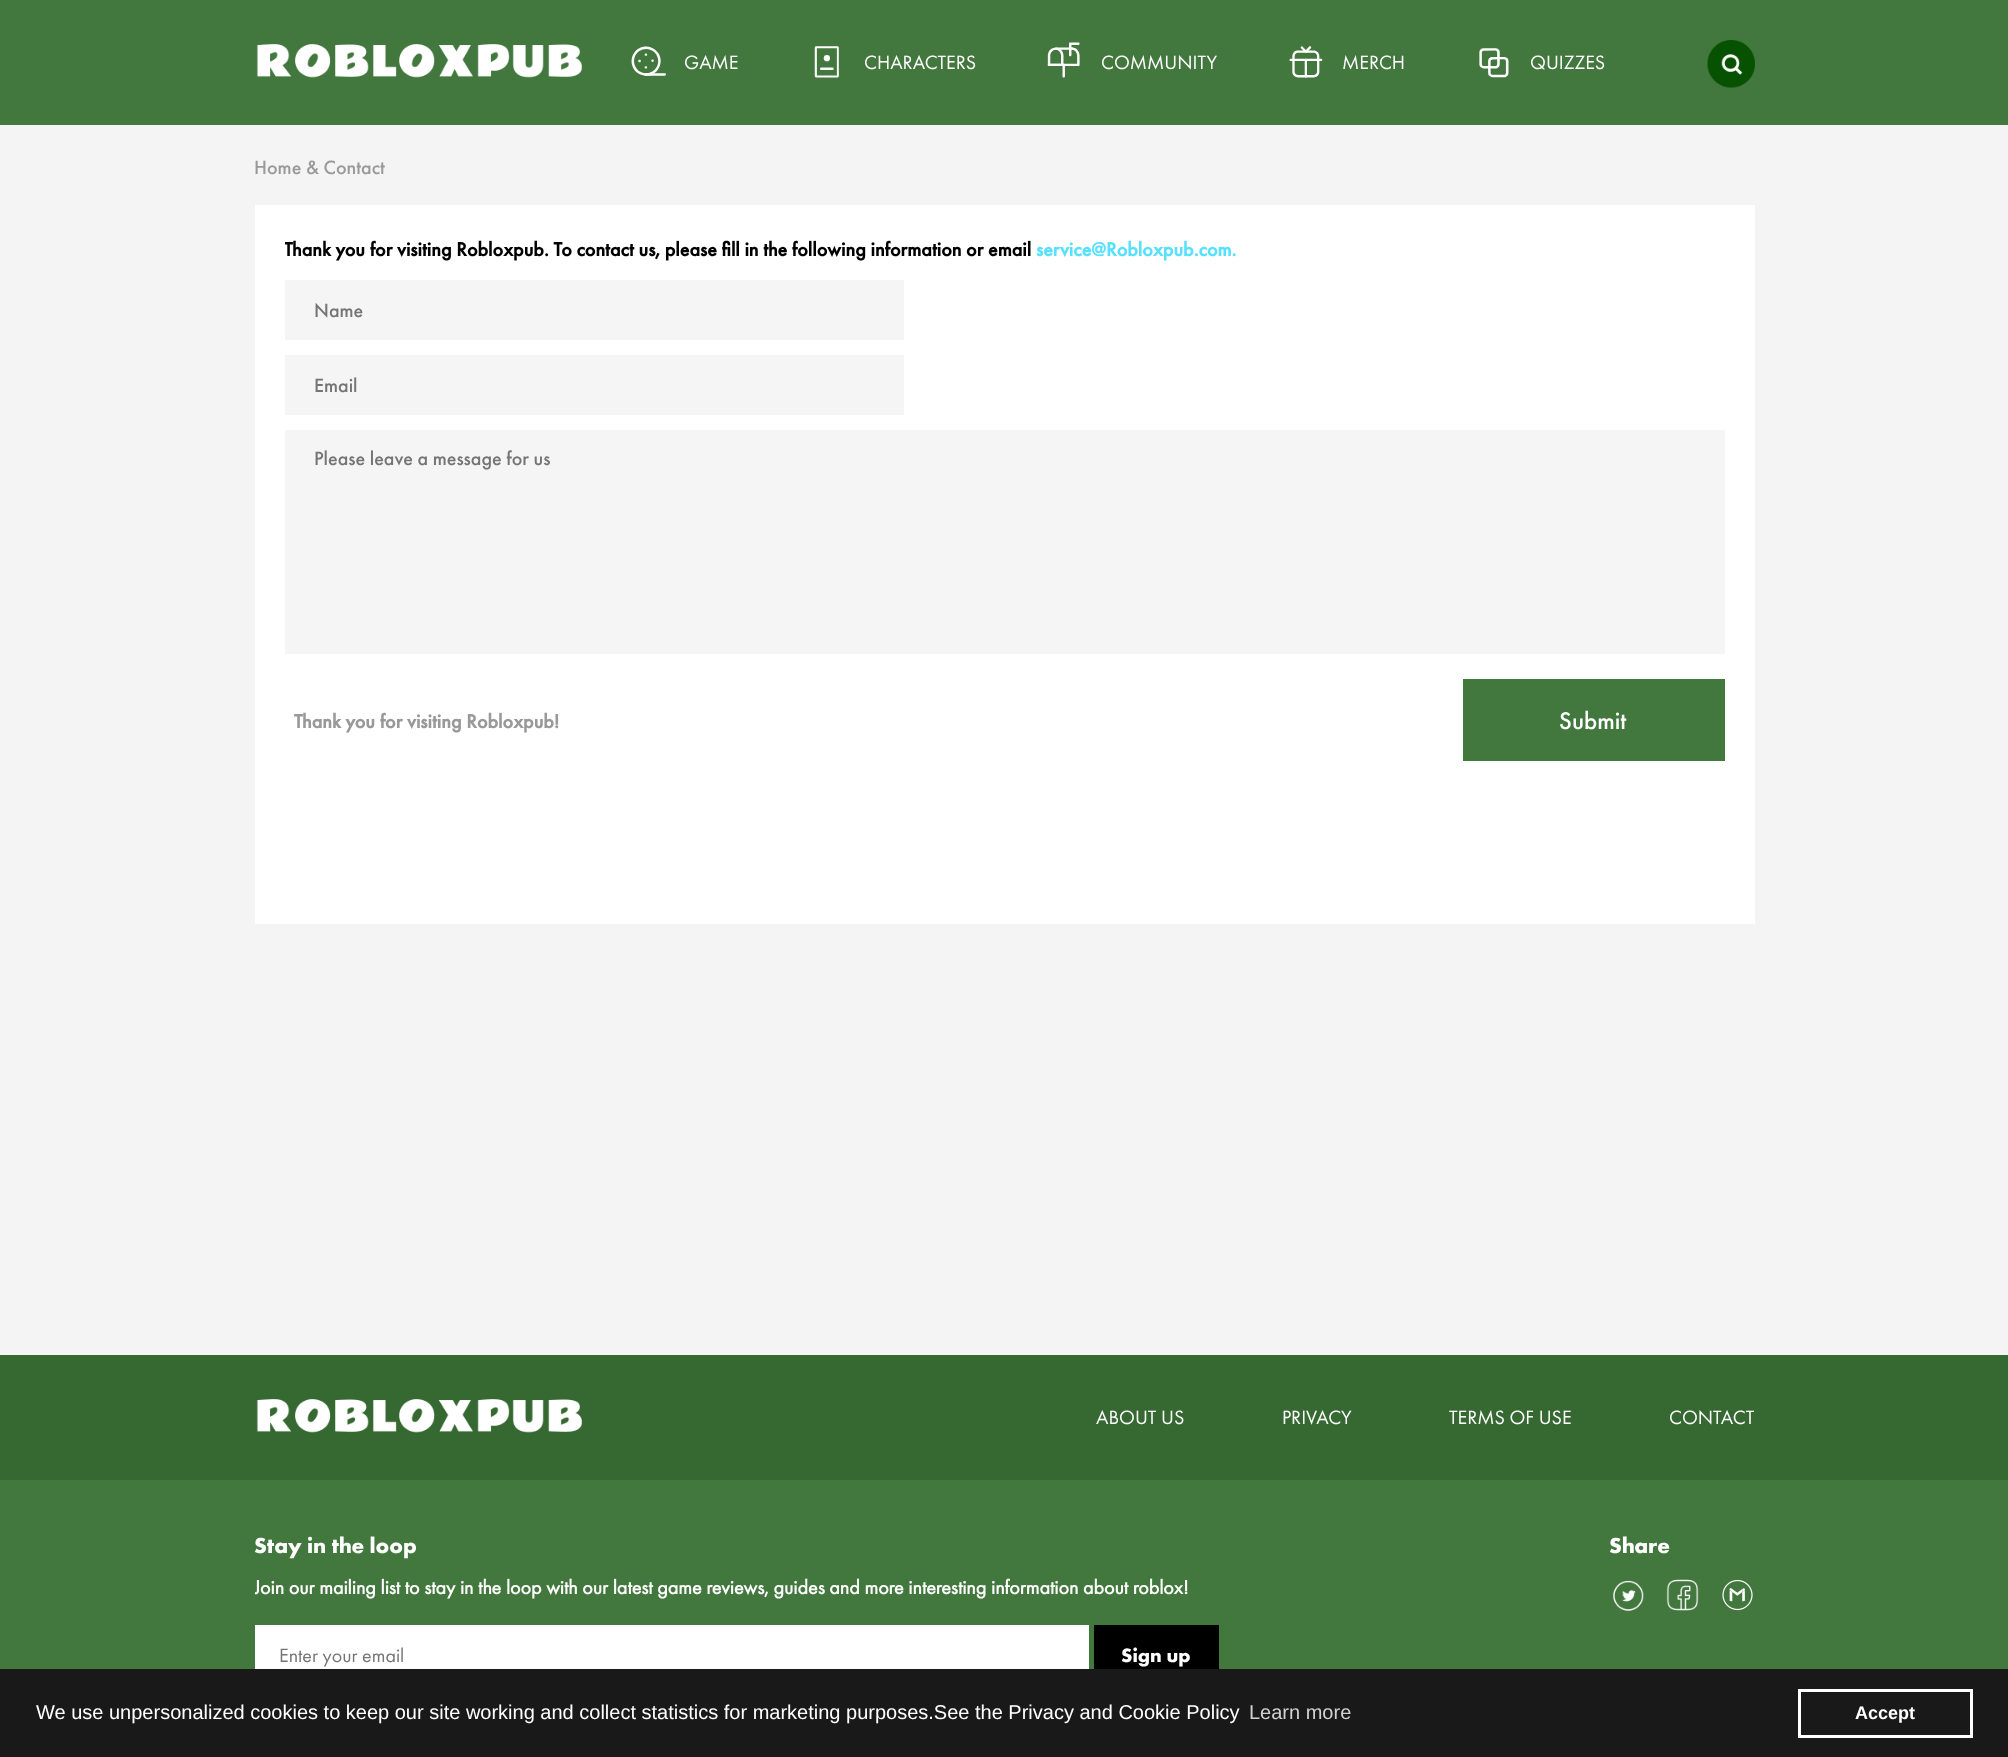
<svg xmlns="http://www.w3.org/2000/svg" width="2008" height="1757">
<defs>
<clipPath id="clip1"><rect x="285" y="235" width="1440" height="30"/></clipPath>
<clipPath id="clip2"><rect x="255" y="1574" width="1020" height="26"/></clipPath>
</defs>
<rect width="100%" height="100%" fill="#f4f4f4"/>
<rect width="2008" height="125" fill="#42773e"/>
<image x="256" y="44" width="327" height="34" href="media/1.png"/>
<image x="631" y="46" width="35" height="30" href="media/2.png"/>
<text x="684" y="69" style="font-family:Futura PT;font-size:20px;fill:#fff">GAME</text>
<image x="814" y="46" width="25" height="32" href="media/3.png"/>
<text x="864" y="69" style="font-family:Futura PT;font-size:20px;fill:#fff">CHARACTERS</text>
<image x="1047" y="42" width="33" height="36" href="media/4.png"/>
<text x="1101" y="69" style="font-family:Futura PT;font-size:20px;fill:#fff">COMMUNITY</text>
<image x="1289" y="46" width="34" height="32" href="media/5.png"/>
<text x="1342" y="69" style="font-family:Futura PT;font-size:20px;fill:#fff">MERCH</text>
<image x="1479" y="48" width="30" height="30" href="media/6.png"/>
<text x="1530" y="69" style="font-family:Futura PT;font-size:20px;fill:#fff">QUIZZES</text>
<image x="1707" y="40" width="48" height="48" href="media/7.png"/>
<text x="254" y="174" style="font-family:Futura PT;font-size:20px;font-weight:500;fill:#999">Home &amp; Contact</text>
<rect x="255" y="205" width="1500" height="719" fill="#fff"/>
<g clip-path="url(#clip1)">
<text x="284" y="256" style="font-family:Futura PT;font-size:20px;font-weight:bold;fill:#000">Thank you for visiting Robloxpub. To contact us, please fill in the following information or email</text>
</g>
<text x="1036" y="256" style="font-family:Futura PT;font-size:20px;font-weight:bold;fill:#58e1ff">service@Robloxpub.com.</text>
<rect x="285" y="280" width="619" height="60" fill="#f5f5f5"/>
<text x="314" y="317" style="font-family:Futura PT;font-size:20px;font-weight:500;fill:#757575">Name</text>
<rect x="285" y="355" width="619" height="60" fill="#f5f5f5"/>
<text x="314" y="392" style="font-family:Futura PT;font-size:20px;font-weight:500;fill:#757575">Email</text>
<rect x="285" y="430" width="1440" height="224" fill="#f5f5f5"/>
<text x="314" y="465" style="font-family:Futura PT;font-size:20px;font-weight:500;fill:#757575">Please leave a message for us</text>
<text x="294" y="728" style="font-family:Futura PT;font-size:20px;font-weight:bold;fill:#999">Thank you for visiting Robloxpub!</text>
<rect x="1463" y="679" width="262" height="82" fill="#42773e"/>
<text x="1559" y="729" style="font-family:Futura PT;font-size:25px;font-weight:500;fill:#fff">Submit</text>
<rect y="1480" width="2008" height="189" fill="#42773e"/>
<rect y="1355" width="2008" height="125" fill="#366932"/>
<image x="256" y="1399" width="327" height="34" href="media/8.png"/>
<text x="1096" y="1424" style="font-family:Futura PT;font-size:20px;fill:#fff">ABOUT US</text>
<text x="1282" y="1424" style="font-family:Futura PT;font-size:20px;fill:#fff">PRIVACY</text>
<text x="1449" y="1424" style="font-family:Futura PT;font-size:20px;fill:#fff">TERMS OF USE</text>
<text x="1669" y="1424" style="font-family:Futura PT;font-size:20px;fill:#fff">CONTACT</text>
<text x="254" y="1553" style="font-family:'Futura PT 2';font-size:22.5px;font-weight:bold;fill:#fff">Stay in the loop</text>
<g clip-path="url(#clip2)">
<text x="254" y="1594" style="font-family:'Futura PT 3';font-size:20px;font-weight:bold;fill:#fff">Join our mailing list to stay in the loop with our latest game reviews, guides and more interesting</text>
</g>
<text x="991" y="1594" style="font-family:'Futura PT 3';font-size:20px;font-weight:bold;fill:#fff">information about roblox!</text>
<rect x="255" y="1625" width="834" height="44" fill="#fff"/>
<text x="279" y="1662" style="font-family:Futura PT;font-size:20px;fill:#757575">Enter your email</text>
<rect x="1094" y="1625" width="125" height="44" fill="#000"/>
<text x="1121" y="1662" style="font-family:'Futura PT 2';font-size:20px;font-weight:bold;fill:#fff">Sign up</text>
<text x="1609" y="1553" style="font-family:'Futura PT 2';font-size:22.5px;font-weight:bold;fill:#fff">Share</text>
<image x="1613" y="1580" width="31" height="31" href="media/9.png"/>
<image x="1666" y="1579" width="33" height="32" href="media/10.png"/>
<image x="1722" y="1579" width="31" height="32" href="media/11.png"/>
<rect y="1669" width="2008" height="88" fill="#191919"/>
<text x="36" y="1719" style="font-family:Liberation Sans;font-size:20px;fill:#fff">We use unpersonalized cookies to keep our site working and collect statistics for marketing purposes.See the Privacy and Cookie Policy</text>
<text x="1249" y="1719" style="font-family:Liberation Sans;font-size:20px;fill:#d1d1d1">Learn more</text>
<rect x="1799.5" y="1690.5" width="172" height="46" fill="none" stroke="#fff" stroke-width="3"/>
<text x="1855" y="1719" style="font-family:Liberation Sans;font-size:18px;font-weight:bold;fill:#fff">Accept</text>
</svg>
